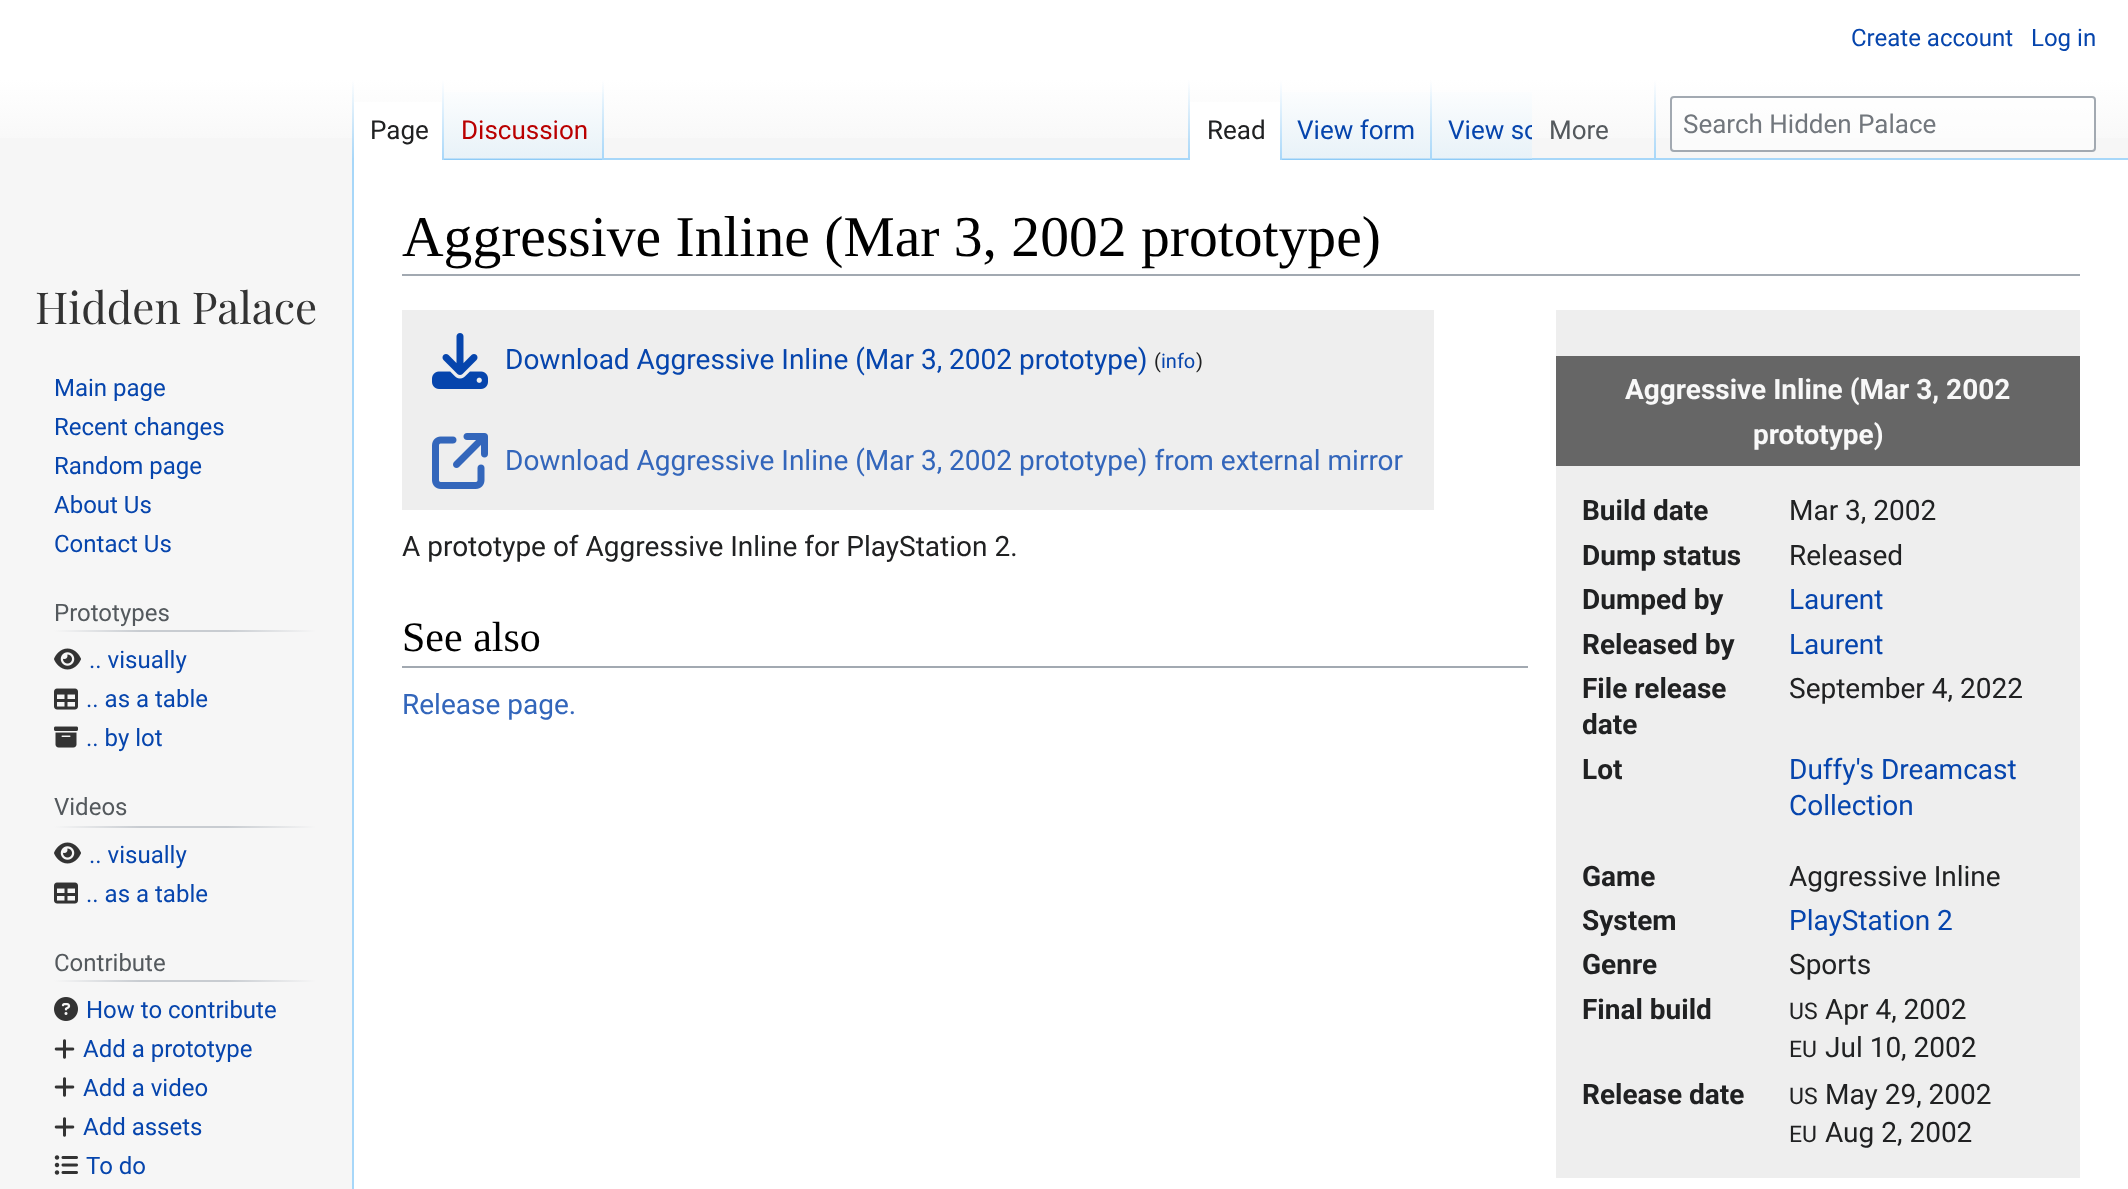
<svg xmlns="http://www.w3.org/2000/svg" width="2128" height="1189">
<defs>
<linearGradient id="g1" gradientUnits="userSpaceOnUse" x1="1064" y1="0" x2="1064" y2="160"><stop offset="0.5" stop-color="#fff"/><stop offset="1" stop-color="#f6f6f6"/></linearGradient>
<linearGradient id="g2" gradientUnits="userSpaceOnUse" x1="353" y1="80" x2="353" y2="160"><stop offset="0" stop-color="#a7d7f9" stop-opacity="0"/><stop offset="1" stop-color="#a7d7f9"/></linearGradient>
<linearGradient id="g3" gradientUnits="userSpaceOnUse" x1="443" y1="80" x2="443" y2="160"><stop offset="0" stop-color="#fff"/><stop offset="1" stop-color="#a7d7f9"/></linearGradient>
<linearGradient id="g4" gradientUnits="userSpaceOnUse" x1="524" y1="160" x2="524" y2="80"><stop offset="0" stop-color="#77c1f6"/><stop offset="0.03" stop-color="#e8f2f8"/><stop offset="1" stop-color="#fff"/></linearGradient>
<linearGradient id="g5" gradientUnits="userSpaceOnUse" x1="603" y1="80" x2="603" y2="160"><stop offset="0" stop-color="#a7d7f9" stop-opacity="0"/><stop offset="1" stop-color="#a7d7f9"/></linearGradient>
<linearGradient id="g6" gradientUnits="userSpaceOnUse" x1="1189" y1="80" x2="1189" y2="160"><stop offset="0" stop-color="#a7d7f9" stop-opacity="0"/><stop offset="1" stop-color="#a7d7f9"/></linearGradient>
<linearGradient id="g7" gradientUnits="userSpaceOnUse" x1="1281" y1="80" x2="1281" y2="160"><stop offset="0" stop-color="#fff"/><stop offset="1" stop-color="#a7d7f9"/></linearGradient>
<linearGradient id="g8" gradientUnits="userSpaceOnUse" x1="1357" y1="160" x2="1357" y2="80"><stop offset="0" stop-color="#77c1f6"/><stop offset="0.03" stop-color="#e8f2f8"/><stop offset="1" stop-color="#fff"/></linearGradient>
<linearGradient id="g9" gradientUnits="userSpaceOnUse" x1="1431" y1="80" x2="1431" y2="160"><stop offset="0" stop-color="#a7d7f9" stop-opacity="0"/><stop offset="1" stop-color="#a7d7f9"/></linearGradient>
<linearGradient id="g10" gradientUnits="userSpaceOnUse" x1="1482" y1="160" x2="1482" y2="80"><stop offset="0" stop-color="#77c1f6"/><stop offset="0.03" stop-color="#e8f2f8"/><stop offset="1" stop-color="#fff"/></linearGradient>
<clipPath id="clip1"><rect x="1432" y="80" width="100" height="80"/></clipPath>
<linearGradient id="g11" gradientUnits="userSpaceOnUse" x1="1655" y1="80" x2="1655" y2="160"><stop offset="0" stop-color="#a7d7f9" stop-opacity="0"/><stop offset="1" stop-color="#a7d7f9"/></linearGradient>
<linearGradient id="g12" gradientUnits="userSpaceOnUse" x1="54" y1="631" x2="316" y2="631"><stop offset="0" stop-color="#f6f6f6"/><stop offset="0.33" stop-color="#c8ccd1"/><stop offset="0.66" stop-color="#c8ccd1"/><stop offset="1" stop-color="#f6f6f6"/></linearGradient>
<linearGradient id="g13" gradientUnits="userSpaceOnUse" x1="54" y1="827" x2="316" y2="827"><stop offset="0" stop-color="#f6f6f6"/><stop offset="0.33" stop-color="#c8ccd1"/><stop offset="0.66" stop-color="#c8ccd1"/><stop offset="1" stop-color="#f6f6f6"/></linearGradient>
<linearGradient id="g14" gradientUnits="userSpaceOnUse" x1="54" y1="981" x2="316" y2="981"><stop offset="0" stop-color="#f6f6f6"/><stop offset="0.33" stop-color="#c8ccd1"/><stop offset="0.66" stop-color="#c8ccd1"/><stop offset="1" stop-color="#f6f6f6"/></linearGradient>
</defs>
<rect width="100%" height="100%" fill="#f6f6f6"/>
<rect width="2128" height="138" fill="url(#g1)"/>
<text x="1851" y="46" style="font-family:Roboto;font-size:24px;fill:#0645ad">Create account</text>
<text x="2031" y="46" style="font-family:Roboto;font-size:24px;fill:#0645ad">Log in</text>
<rect x="352" y="158" width="2" height="1031" fill="#a7d7f9"/>
<rect x="352" y="80" width="2" height="80" fill="url(#g2)"/>
<rect x="354" y="102" width="88" height="58" fill="#fff"/>
<rect x="442" y="80" width="2" height="80" fill="url(#g3)"/>
<text x="370" y="139" style="font-family:Roboto;font-size:26px;fill:#202122">Page</text>
<rect x="444" y="92" width="160" height="68" fill="url(#g4)"/>
<rect x="602" y="80" width="2" height="80" fill="url(#g5)"/>
<text x="461" y="139" style="font-family:Roboto;font-size:26px;fill:#ba0000">Discussion</text>
<rect x="604" y="158" width="1524" height="2" fill="#a7d7f9"/>
<rect x="1188" y="80" width="2" height="80" fill="url(#g6)"/>
<rect x="1190" y="102" width="90" height="58" fill="#fff"/>
<rect x="1280" y="80" width="2" height="80" fill="url(#g7)"/>
<text x="1207" y="139" style="font-family:Roboto;font-size:26px;fill:#202122">Read</text>
<rect x="1282" y="92" width="150" height="68" fill="url(#g8)"/>
<rect x="1430" y="80" width="2" height="80" fill="url(#g9)"/>
<text x="1297" y="139" style="font-family:Roboto;font-size:26px;fill:#0645ad">View form</text>
<rect x="1432" y="92" width="100" height="68" fill="url(#g10)"/>
<g clip-path="url(#clip1)">
<text x="1448" y="139" style="font-family:Roboto;font-size:26px;fill:#0645ad">View so</text>
</g>
<rect x="1654" y="80" width="2" height="80" fill="url(#g11)"/>
<text x="1549" y="139" style="font-family:Roboto;font-size:26px;fill:#54595d">More</text>
<rect x="1671" y="97" width="424" height="54" rx="3" fill="#ffffff80" stroke="#a2a9b1" stroke-width="2"/>
<text x="1683" y="133" style="font-family:Roboto;font-size:26px;fill:#72777d">Search Hidden Palace</text>
<text x="35" y="324" style="font-family:Playfair Display;font-size:44px;fill:#333">Hidden Palace</text>
<text x="54" y="396" style="font-family:Roboto;font-size:24px;fill:#0645ad">Main page</text>
<text x="54" y="435" style="font-family:Roboto;font-size:24px;fill:#0645ad">Recent changes</text>
<text x="54" y="474" style="font-family:Roboto;font-size:24px;fill:#0645ad">Random page</text>
<text x="54" y="513" style="font-family:Roboto;font-size:24px;fill:#0645ad">About Us</text>
<text x="54" y="552" style="font-family:Roboto;font-size:24px;fill:#0645ad">Contact Us</text>
<rect x="54" y="630" width="262" height="2" fill="url(#g12)"/>
<text x="54" y="621" style="font-family:Roboto;font-size:24px;fill:#54595d">Prototypes</text>
<image x="54" y="648" width="27" height="22" href="media/1.png"/>
<text x="89" y="668" style="font-family:Roboto;font-size:24px;fill:#0645ad">.. visually</text>
<image x="54" y="688" width="24" height="22" href="media/2.png"/>
<text x="86" y="707" style="font-family:Roboto;font-size:24px;fill:#0645ad">.. as a table</text>
<image x="54" y="726" width="24" height="22" href="media/3.png"/>
<text x="86" y="746" style="font-family:Roboto;font-size:24px;fill:#0645ad">.. by lot</text>
<rect x="54" y="826" width="262" height="2" fill="url(#g13)"/>
<text x="54" y="815" style="font-family:Roboto;font-size:24px;fill:#54595d">Videos</text>
<image x="54" y="842" width="27" height="22" href="media/1.png"/>
<text x="89" y="863" style="font-family:Roboto;font-size:24px;fill:#0645ad">.. visually</text>
<image x="54" y="882" width="24" height="22" href="media/2.png"/>
<text x="86" y="902" style="font-family:Roboto;font-size:24px;fill:#0645ad">.. as a table</text>
<rect x="54" y="980" width="262" height="2" fill="url(#g14)"/>
<text x="54" y="971" style="font-family:Roboto;font-size:24px;fill:#54595d">Contribute</text>
<image x="54" y="997" width="24" height="24" href="media/4.png"/>
<text x="86" y="1018" style="font-family:Roboto;font-size:24px;fill:#0645ad">How to contribute</text>
<image x="54" y="1039" width="21" height="20" href="media/5.png"/>
<text x="83" y="1057" style="font-family:Roboto;font-size:24px;fill:#0645ad">Add a prototype</text>
<image x="54" y="1077" width="21" height="20" href="media/5.png"/>
<text x="83" y="1096" style="font-family:Roboto;font-size:24px;fill:#0645ad">Add a video</text>
<image x="54" y="1117" width="21" height="20" href="media/5.png"/>
<text x="83" y="1135" style="font-family:Roboto;font-size:24px;fill:#0645ad">Add assets</text>
<image x="54" y="1155" width="24" height="20" href="media/6.png"/>
<text x="86" y="1174" style="font-family:Roboto;font-size:24px;fill:#0645ad">To do</text>
<rect x="354" y="160" width="1774" height="1029" fill="#fff"/>
<rect x="402" y="274" width="1678" height="2" fill="#a2a9b1"/>
<text x="402" y="256" style="font-family:Liberation Serif;font-size:57.6px;fill:#000">Aggressive Inline (Mar 3, 2002 prototype)</text>
<rect x="402" y="310" width="1032" height="200" fill="#eee"/>
<image x="432" y="333" width="56" height="56" href="media/7.png"/>
<text x="505" y="369" style="font-family:Roboto;font-size:28px;fill:#0645ad">Download Aggressive Inline (Mar 3, 2002 prototype)</text>
<text x="1154" y="368" style="font-family:Roboto;font-size:20px;fill:#202122">(</text>
<text x="1161" y="368" style="font-family:Roboto;font-size:20px;fill:#0645ad">info</text>
<text x="1196" y="368" style="font-family:Roboto;font-size:20px;fill:#202122">)</text>
<image x="432" y="433" width="56" height="56" href="media/8.png"/>
<text x="505" y="470" style="font-family:Roboto;font-size:28px;fill:#36b">Download Aggressive Inline (Mar 3, 2002 prototype) from external mirror</text>
<rect x="1556" y="310" width="524" height="868" fill="#eee"/>
<rect x="1556" y="356" width="524" height="110" fill="#666"/>
<text x="1625" y="399" style="font-family:Roboto;font-size:28px;font-weight:bold;fill:#f8f8f8">Aggressive Inline (Mar 3, 2002</text>
<text x="1753" y="444" style="font-family:Roboto;font-size:28px;font-weight:bold;fill:#f8f8f8">prototype)</text>
<text x="1582" y="520" style="font-family:Roboto;font-size:28px;font-weight:bold;fill:#202122">Build date</text>
<text x="1789" y="520" style="font-family:Roboto;font-size:28px;fill:#202122">Mar 3, 2002</text>
<text x="1582" y="565" style="font-family:Roboto;font-size:28px;font-weight:bold;fill:#202122">Dump status</text>
<text x="1789" y="565" style="font-family:Roboto;font-size:28px;fill:#202122">Released</text>
<text x="1582" y="609" style="font-family:Roboto;font-size:28px;font-weight:bold;fill:#202122">Dumped by</text>
<text x="1789" y="609" style="font-family:Roboto;font-size:28px;fill:#0645ad">Laurent</text>
<text x="1582" y="654" style="font-family:Roboto;font-size:28px;font-weight:bold;fill:#202122">Released by</text>
<text x="1789" y="654" style="font-family:Roboto;font-size:28px;fill:#0645ad">Laurent</text>
<text x="1582" y="698" style="font-family:Roboto;font-size:28px;font-weight:bold;fill:#202122">File release</text>
<text x="1582" y="734" style="font-family:Roboto;font-size:28px;font-weight:bold;fill:#202122">date</text>
<text x="1789" y="698" style="font-family:Roboto;font-size:28px;fill:#202122">September 4, 2022</text>
<text x="1582" y="779" style="font-family:Roboto;font-size:28px;font-weight:bold;fill:#202122">Lot</text>
<text x="1789" y="779" style="font-family:Roboto;font-size:28px;fill:#0645ad">Duffy's Dreamcast</text>
<text x="1789" y="815" style="font-family:Roboto;font-size:28px;fill:#0645ad">Collection</text>
<text x="1582" y="886" style="font-family:Roboto;font-size:28px;font-weight:bold;fill:#202122">Game</text>
<text x="1789" y="886" style="font-family:Roboto;font-size:28px;fill:#202122">Aggressive Inline</text>
<text x="1582" y="930" style="font-family:Roboto;font-size:28px;font-weight:bold;fill:#202122">System</text>
<text x="1789" y="930" style="font-family:Roboto;font-size:28px;fill:#0645ad">PlayStation 2</text>
<text x="1582" y="974" style="font-family:Roboto;font-size:28px;font-weight:bold;fill:#202122">Genre</text>
<text x="1789" y="974" style="font-family:Roboto;font-size:28px;fill:#202122">Sports</text>
<text x="1582" y="1019" style="font-family:Roboto;font-size:28px;font-weight:bold;fill:#202122">Final build</text>
<text x="1789" y="1019" style="font-family:Roboto;font-size:23px;fill:#202122">US</text>
<text x="1825" y="1019" style="font-family:Roboto;font-size:28px;fill:#202122">Apr 4, 2002</text>
<text x="1789" y="1057" style="font-family:Roboto;font-size:23px;fill:#202122">EU</text>
<text x="1825" y="1057" style="font-family:Roboto;font-size:28px;fill:#202122">Jul 10, 2002</text>
<text x="1582" y="1104" style="font-family:Roboto;font-size:28px;font-weight:bold;fill:#202122">Release date</text>
<text x="1789" y="1104" style="font-family:Roboto;font-size:23px;fill:#202122">US</text>
<text x="1825" y="1104" style="font-family:Roboto;font-size:28px;fill:#202122">May 29, 2002</text>
<text x="1789" y="1142" style="font-family:Roboto;font-size:23px;fill:#202122">EU</text>
<text x="1825" y="1142" style="font-family:Roboto;font-size:28px;fill:#202122">Aug 2, 2002</text>
<text x="402" y="556" style="font-family:Roboto;font-size:28px;fill:#202122">A prototype of Aggressive Inline for PlayStation 2.</text>
<rect x="402" y="666" width="1126" height="2" fill="#a2a9b1"/>
<text x="402" y="651" style="font-family:Liberation Serif;font-size:42px;fill:#000">See also</text>
<text x="402" y="714" style="font-family:Roboto;font-size:28px;fill:#36b">Release page.</text>
</svg>
